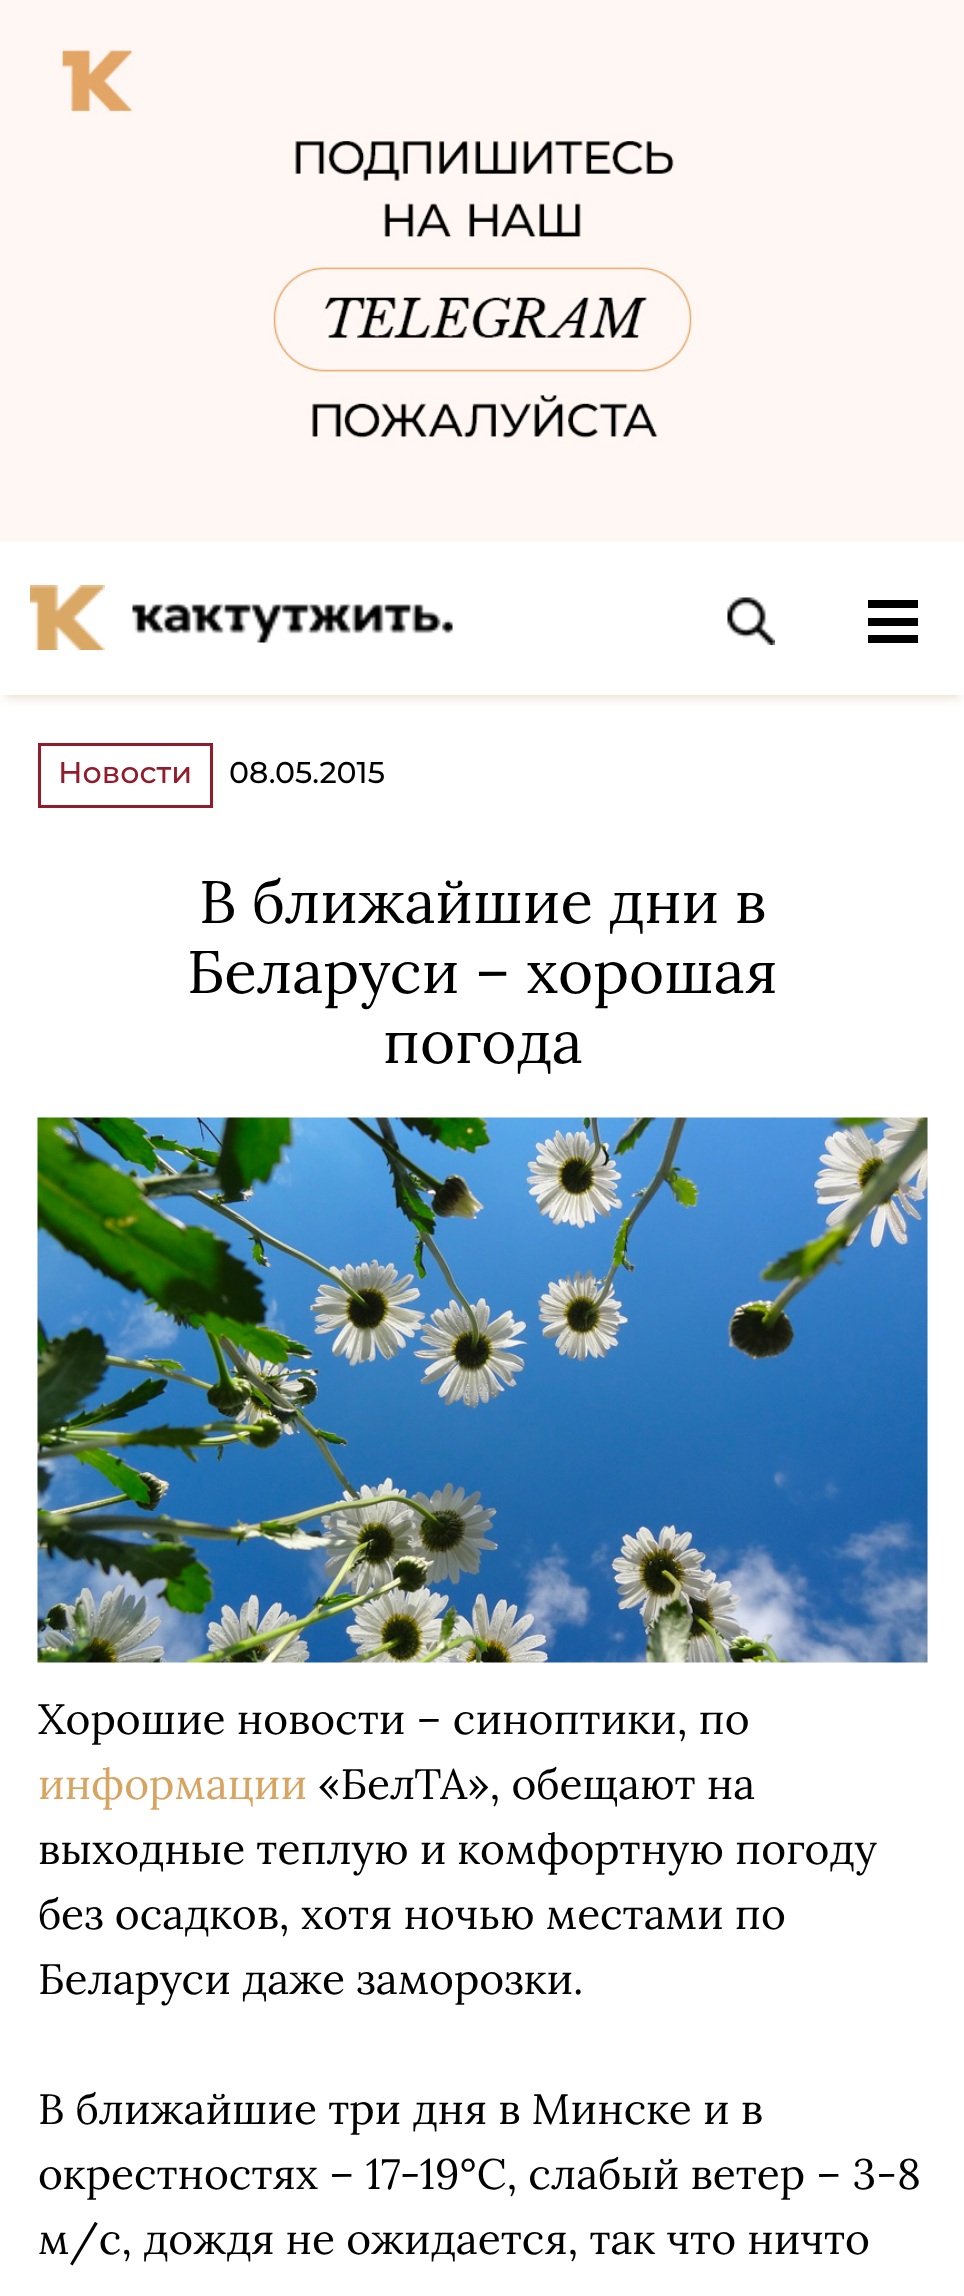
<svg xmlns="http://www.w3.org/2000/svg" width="964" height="2296">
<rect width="100%" height="100%" fill="#fff"/>
<image x="0" y="0" width="964" height="542" href="media/1.png"/>
<rect x="5" y="555" width="955" height="143" fill="#ece2ce" filter="blur(5px)"/>
<rect y="547" width="964" height="148" fill="#fff"/>
<image x="30" y="585" width="75" height="65" href="media/2.png"/>
<image x="132" y="602" width="321" height="41" href="media/3.png"/>
<image x="727" y="597" width="48" height="48" href="media/4.png"/>
<rect x="868" y="600" width="50" height="8" fill="#000"/>
<rect x="868" y="618" width="50" height="8" fill="#000"/>
<rect x="868" y="635" width="50" height="8" fill="#000"/>
<rect x="39.5" y="744.5" width="172" height="62" fill="none" stroke="#921c2c" stroke-width="3"/>
<text x="58" y="783" style="font-family:Montserrat;font-size:30px;font-weight:500;fill:#921c2c">Новости</text>
<text x="229" y="783" style="font-family:Montserrat;font-size:30px;font-weight:500;fill:#000">08.05.2015</text>
<text x="199" y="923" style="font-family:Lora;font-size:60px;fill:#000">В ближайшие дни в</text>
<text x="187" y="993" style="font-family:Lora;font-size:60px;fill:#000">Беларуси – хорошая</text>
<text x="383" y="1063" style="font-family:Lora;font-size:60px;fill:#000">погода</text>
<image x="37" y="1117" width="891" height="546" href="media/5.png"/>
<text x="38" y="1734" style="font-family:Lora;font-size:42.5px;fill:#000">Хорошие новости – синоптики, по</text>
<text x="38" y="1799" style="font-family:Lora;font-size:42.5px;fill:#d8a462">информации</text>
<text x="318" y="1799" style="font-family:Lora;font-size:42.5px;fill:#000">«БелТА», обещают на</text>
<text x="38" y="1864" style="font-family:Lora;font-size:42.5px;fill:#000">выходные теплую и комфортную погоду</text>
<text x="38" y="1929" style="font-family:Lora;font-size:42.5px;fill:#000">без осадков, хотя ночью местами по</text>
<text x="38" y="1994" style="font-family:Lora;font-size:42.5px;fill:#000">Беларуси даже заморозки.</text>
<text x="38" y="2124" style="font-family:Lora;font-size:42.5px;fill:#000">В ближайшие три дня в Минске и в</text>
<text x="38" y="2189" style="font-family:Lora;font-size:42.5px;fill:#000">окрестностях – 17-19°С, слабый ветер – 3-8</text>
<text x="38" y="2254" style="font-family:Lora;font-size:42.5px;fill:#000">м/с, дождя не ожидается, так что ничто</text>
</svg>
